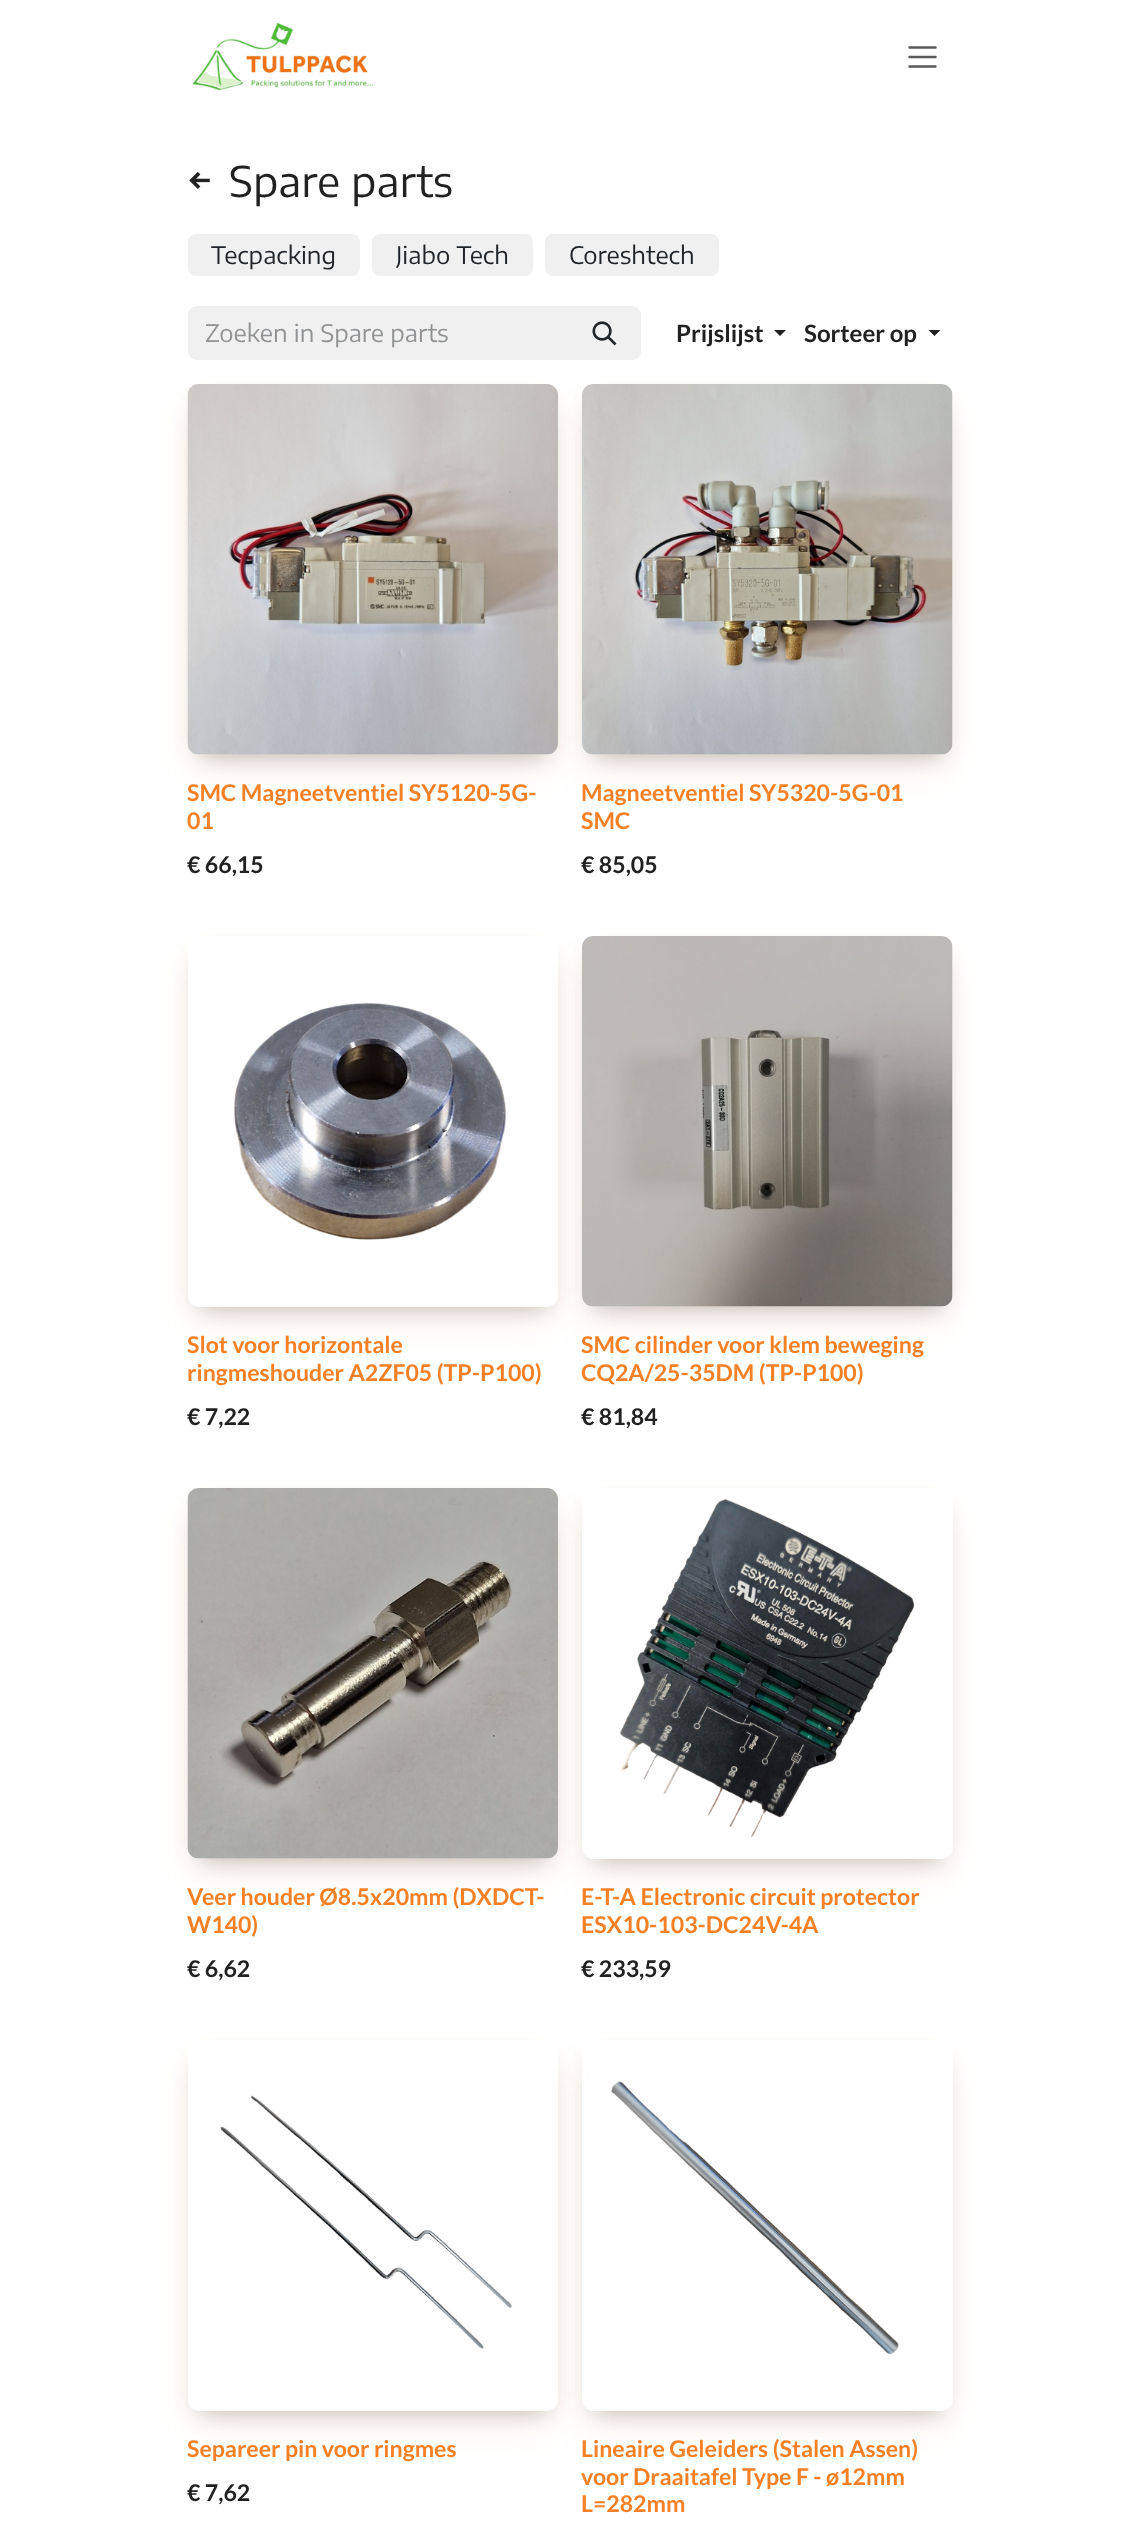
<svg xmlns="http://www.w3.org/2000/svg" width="1138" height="2547">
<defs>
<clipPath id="clip1"><rect x="206" y="318" width="303" height="30"/></clipPath>
<clipPath id="clip2"><path d="M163 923h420v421h-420zm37 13h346c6.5 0 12 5.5 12 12v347c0 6.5-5.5 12-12 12h-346c-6.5 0-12-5.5-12-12v-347c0-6.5 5.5-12 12-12z" clip-rule="evenodd"/></clipPath>
<clipPath id="clip3"><path d="M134 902h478v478h-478zm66 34h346c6.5 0 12 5.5 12 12v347c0 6.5-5.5 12-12 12h-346c-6.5 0-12-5.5-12-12v-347c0-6.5 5.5-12 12-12z" clip-rule="evenodd"/></clipPath>
<clipPath id="clip4"><path d="M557 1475h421v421h-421zm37 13h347c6.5 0 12 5.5 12 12v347c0 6.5-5.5 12-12 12h-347c-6.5 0-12-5.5-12-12v-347c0-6.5 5.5-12 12-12z" clip-rule="evenodd"/></clipPath>
<clipPath id="clip5"><path d="M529 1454h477v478h-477zm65 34h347c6.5 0 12 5.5 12 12v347c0 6.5-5.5 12-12 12h-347c-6.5 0-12-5.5-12-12v-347c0-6.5 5.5-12 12-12z" clip-rule="evenodd"/></clipPath>
<clipPath id="clip6"><path d="M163 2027h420v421h-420zm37 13h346c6.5 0 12 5.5 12 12v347c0 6.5-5.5 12-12 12h-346c-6.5 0-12-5.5-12-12v-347c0-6.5 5.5-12 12-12z" clip-rule="evenodd"/></clipPath>
<clipPath id="clip7"><path d="M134 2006h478v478h-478zm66 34h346c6.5 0 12 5.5 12 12v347c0 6.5-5.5 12-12 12h-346c-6.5 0-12-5.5-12-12v-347c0-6.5 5.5-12 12-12z" clip-rule="evenodd"/></clipPath>
<clipPath id="clip8"><path d="M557 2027h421v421h-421zm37 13h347c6.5 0 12 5.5 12 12v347c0 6.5-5.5 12-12 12h-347c-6.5 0-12-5.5-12-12v-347c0-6.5 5.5-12 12-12z" clip-rule="evenodd"/></clipPath>
<clipPath id="clip9"><path d="M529 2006h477v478h-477zm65 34h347c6.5 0 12 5.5 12 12v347c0 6.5-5.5 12-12 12h-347c-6.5 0-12-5.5-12-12v-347c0-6.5 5.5-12 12-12z" clip-rule="evenodd"/></clipPath>
</defs>
<rect width="100%" height="100%" fill="#fff"/>
<image x="192" y="22" width="182" height="69" href="media/1.png"/>
<path d="M909.5 47.5h26m-26 9.5h26m-26 9.5h26" fill="none" stroke="#595959" stroke-width="2.4" stroke-linecap="round"/>
<image x="189" y="172" width="21" height="17" href="media/2.png"/>
<text x="229" y="197" style="font-family:Encode Sans Semi Expanded;font-size:42px;fill:#212121">Spare parts</text>
<rect x="188" y="234" width="172" height="42" rx="8" fill="#f0f0f0"/>
<text x="211" y="264" style="font-family:Encode Sans Semi Expanded;font-size:24px;fill:#212529">Tecpacking</text>
<rect x="372" y="234" width="161" height="42" rx="8" fill="#f0f0f0"/>
<text x="396" y="264" style="font-family:Encode Sans Semi Expanded;font-size:24px;fill:#212529">Jiabo Tech</text>
<rect x="545" y="234" width="174" height="42" rx="8" fill="#f0f0f0"/>
<text x="569" y="264" style="font-family:Encode Sans Semi Expanded;font-size:24px;fill:#212529">Coreshtech</text>
<path d="M197 306h373v54h-373c-5 0-9-4-9-9v-36c0-5 4-9 9-9z" fill="#f0f0f0"/>
<g clip-path="url(#clip1)">
<text x="205" y="342" style="font-family:Encode Sans Semi Expanded;font-size:24px;fill:#909294">Zoeken in Spare parts</text>
</g>
<rect x="195" y="411" width="356" height="356" rx="4" fill="#f680261a" filter="blur(20px)"/>
<rect x="200" y="408" width="346" height="347" fill="#00000047" filter="blur(12px)"/>
<image x="187" y="384" width="371" height="371" href="media/4.png"/>
<rect x="590" y="411" width="355" height="356" rx="4" fill="#f680261a" filter="blur(20px)"/>
<path d="M569 306h63c5 0 9 4 9 9v36c0 5-4 9-9 9h-63z" fill="#f0f0f0"/>
<image x="592" y="321" width="25" height="25" href="media/3.png"/>
<text x="676" y="342" style="font-family:Lato;font-size:24px;font-weight:bold;fill:#212121">Prijslijst</text>
<path d="M774 330h12l-6 6z" fill="#212121"/>
<text x="804" y="342" style="font-family:Lato;font-size:24px;font-weight:bold;fill:#212121">Sorteer op</text>
<path d="M928.5 330h12l-6 6z" fill="#212121"/>
<text x="187" y="801" style="font-family:Lato;font-size:23.1px;font-weight:bold;fill:#f68026">SMC Magneetventiel SY5120-5G-</text>
<text x="187" y="829" style="font-family:Lato;font-size:23.1px;font-weight:bold;fill:#f68026">01</text>
<text x="187" y="873" style="font-family:Lato;font-size:23.1px;font-weight:bold;fill:#212121">€ 66,15</text>
<rect x="594" y="408" width="347" height="347" fill="#00000047" filter="blur(12px)"/>
<image x="582" y="384" width="371" height="371" href="media/5.png"/>
<text x="581" y="801" style="font-family:Lato;font-size:23.1px;font-weight:bold;fill:#f68026">Magneetventiel SY5320-5G-01</text>
<text x="581" y="829" style="font-family:Lato;font-size:23.1px;font-weight:bold;fill:#f68026">SMC</text>
<text x="581" y="873" style="font-family:Lato;font-size:23.1px;font-weight:bold;fill:#212121">€ 85,05</text>
<g clip-path="url(#clip2)">
<rect x="200" y="960" width="346" height="347" fill="#00000047" filter="blur(12px)"/>
</g>
<g clip-path="url(#clip3)">
<rect x="195" y="963" width="356" height="356" rx="4" fill="#f680261a" filter="blur(20px)"/>
</g>
<image x="189" y="1002" width="368" height="305" href="media/6.png"/>
<text x="187" y="1353" style="font-family:Lato;font-size:23.1px;font-weight:bold;fill:#f68026">Slot voor horizontale</text>
<text x="187" y="1381" style="font-family:Lato;font-size:23.1px;font-weight:bold;fill:#f68026">ringmeshouder A2ZF05 (TP-P100)</text>
<text x="187" y="1425" style="font-family:Lato;font-size:23.1px;font-weight:bold;fill:#212121">€ 7,22</text>
<rect x="594" y="960" width="347" height="347" fill="#00000047" filter="blur(12px)"/>
<rect x="590" y="963" width="355" height="356" rx="4" fill="#f680261a" filter="blur(20px)"/>
<image x="582" y="936" width="371" height="371" href="media/7.png"/>
<text x="581" y="1353" style="font-family:Lato;font-size:23.1px;font-weight:bold;fill:#f68026">SMC cilinder voor klem beweging</text>
<text x="581" y="1381" style="font-family:Lato;font-size:23.1px;font-weight:bold;fill:#f68026">CQ2A/25-35DM (TP-P100)</text>
<text x="581" y="1425" style="font-family:Lato;font-size:23.1px;font-weight:bold;fill:#212121">€ 81,84</text>
<rect x="200" y="1512" width="346" height="347" fill="#00000047" filter="blur(12px)"/>
<rect x="195" y="1515" width="356" height="356" rx="4" fill="#f680261a" filter="blur(20px)"/>
<image x="187" y="1488" width="371" height="371" href="media/8.png"/>
<text x="187" y="1905" style="font-family:Lato;font-size:23.1px;font-weight:bold;fill:#f68026">Veer houder Ø8.5x20mm (DXDCT-</text>
<text x="187" y="1933" style="font-family:Lato;font-size:23.1px;font-weight:bold;fill:#f68026">W140)</text>
<text x="187" y="1977" style="font-family:Lato;font-size:23.1px;font-weight:bold;fill:#212121">€ 6,62</text>
<g clip-path="url(#clip4)">
<rect x="594" y="1512" width="347" height="347" fill="#00000047" filter="blur(12px)"/>
</g>
<g clip-path="url(#clip5)">
<rect x="590" y="1515" width="355" height="356" rx="4" fill="#f680261a" filter="blur(20px)"/>
</g>
<image x="582" y="1499" width="370" height="360" href="media/9.png"/>
<text x="581" y="1905" style="font-family:Lato;font-size:23.1px;font-weight:bold;fill:#f68026">E-T-A Electronic circuit protector</text>
<text x="581" y="1933" style="font-family:Lato;font-size:23.1px;font-weight:bold;fill:#f68026">ESX10-103-DC24V-4A</text>
<text x="581" y="1977" style="font-family:Lato;font-size:23.1px;font-weight:bold;fill:#212121">€ 233,59</text>
<g clip-path="url(#clip6)">
<rect x="200" y="2064" width="346" height="347" fill="#00000047" filter="blur(12px)"/>
</g>
<g clip-path="url(#clip7)">
<rect x="195" y="2067" width="356" height="356" rx="4" fill="#f680261a" filter="blur(20px)"/>
</g>
<image x="189" y="2095" width="368" height="316" href="media/10.png"/>
<text x="187" y="2457" style="font-family:Lato;font-size:23.1px;font-weight:bold;fill:#f68026">Separeer pin voor ringmes</text>
<text x="187" y="2501" style="font-family:Lato;font-size:23.1px;font-weight:bold;fill:#212121">€ 7,62</text>
<g clip-path="url(#clip8)">
<rect x="594" y="2064" width="347" height="347" fill="#00000047" filter="blur(12px)"/>
</g>
<g clip-path="url(#clip9)">
<rect x="590" y="2067" width="355" height="356" rx="4" fill="#f680261a" filter="blur(20px)"/>
</g>
<image x="582" y="2081" width="370" height="330" href="media/11.png"/>
<text x="581" y="2457" style="font-family:Lato;font-size:23.1px;font-weight:bold;fill:#f68026">Lineaire Geleiders (Stalen Assen)</text>
<text x="581" y="2485" style="font-family:Lato;font-size:23.1px;font-weight:bold;fill:#f68026">voor Draaitafel Type F - ø12mm</text>
<text x="581" y="2512" style="font-family:Lato;font-size:23.1px;font-weight:bold;fill:#f68026">L=282mm</text>
</svg>
